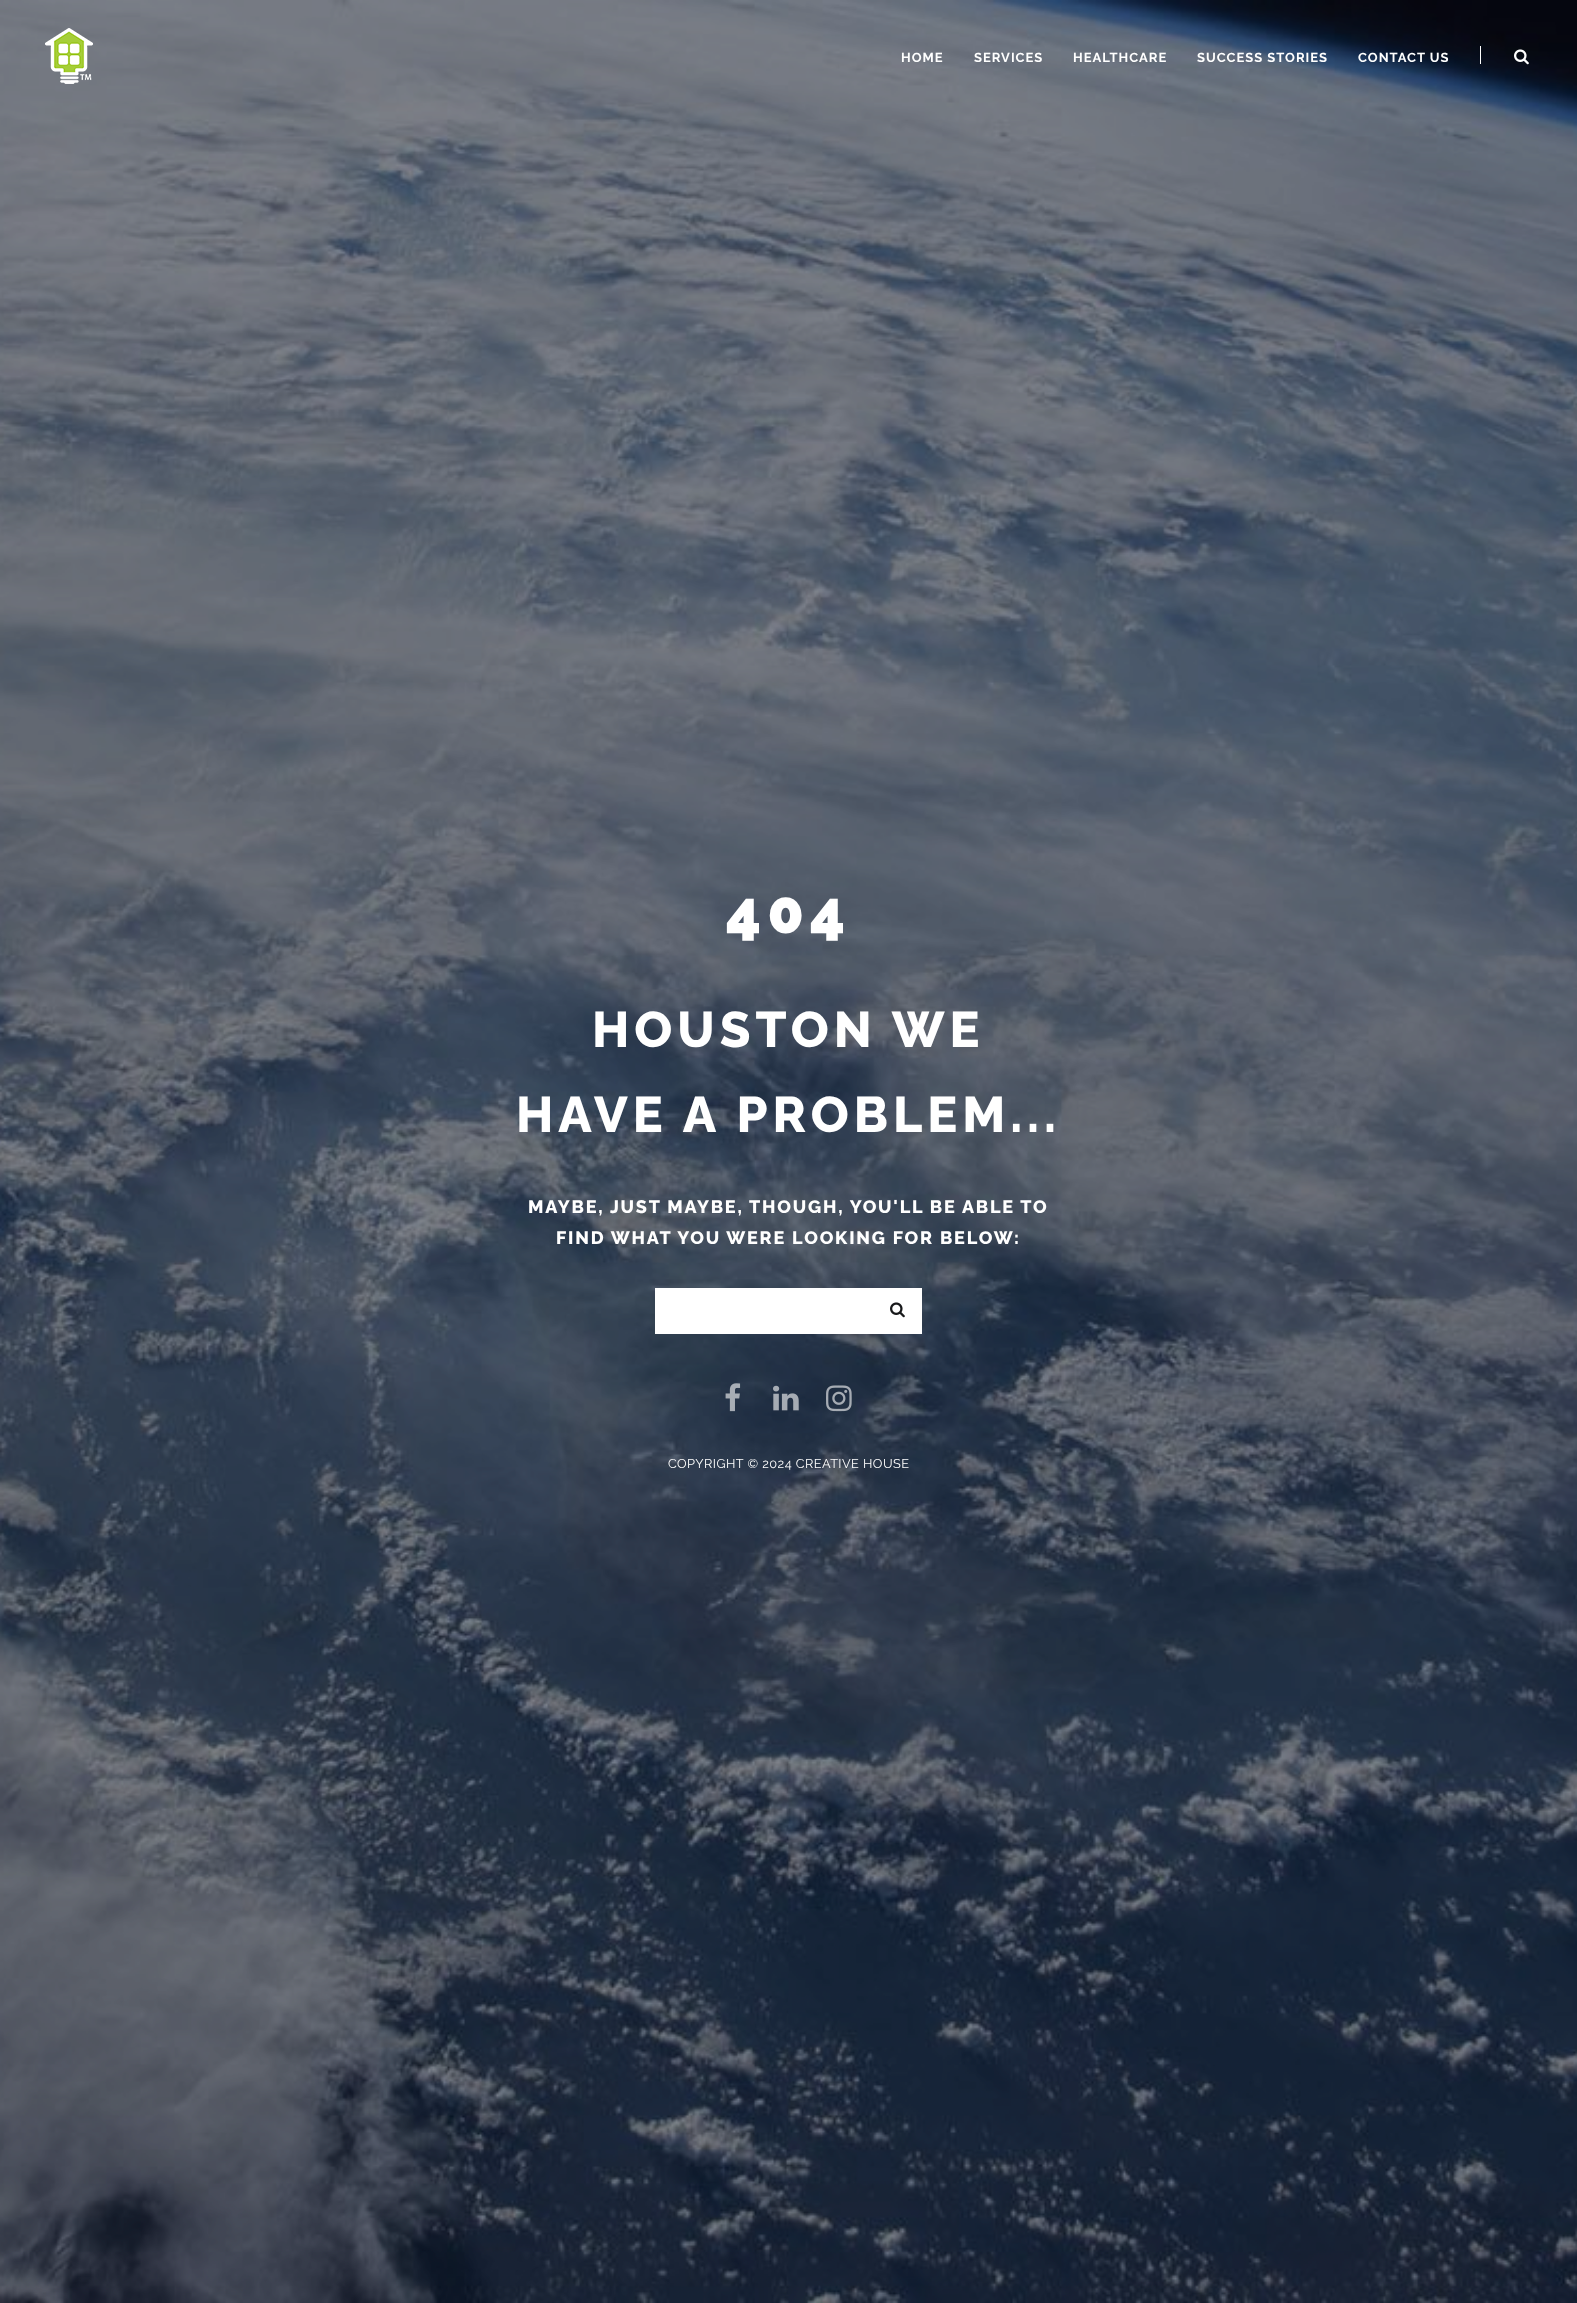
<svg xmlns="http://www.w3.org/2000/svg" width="1577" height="2303">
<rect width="100%" height="100%" fill="#fff"/>
<image x="0" y="0" width="1577" height="2303" href="media/3.png"/>
<image x="45" y="28" width="48" height="56" href="media/1.png"/>
<text x="901" y="62" style="font-family:Raleway;font-size:13px;font-weight:bold;letter-spacing:1px;fill:#fff">HOME</text>
<text x="974" y="62" style="font-family:Raleway;font-size:13px;font-weight:bold;letter-spacing:1px;fill:#fff">SERVICES</text>
<text x="1073" y="62" style="font-family:Raleway;font-size:13px;font-weight:bold;letter-spacing:1px;fill:#fff">HEALTHCARE</text>
<text x="1197" y="62" style="font-family:Raleway;font-size:13px;font-weight:bold;letter-spacing:1px;fill:#fff">SUCCESS STORIES</text>
<text x="1358" y="62" style="font-family:Raleway;font-size:13px;font-weight:bold;letter-spacing:1px;fill:#fff">CONTACT US</text>
<rect x="1480" y="46" width="1" height="18" fill="#fff"/>
<image x="1514" y="49" width="15" height="16" href="media/2.png"/>
<text x="726" y="933" style="font-family:Raleway;font-size:60px;font-weight:900;letter-spacing:6px;fill:#fff">404</text>
<text x="592" y="1047" style="font-family:Raleway;font-size:50px;font-weight:100;letter-spacing:5px;fill:#fff">HOUSTON WE</text>
<text x="516" y="1132" style="font-family:Raleway;font-size:50px;font-weight:100;letter-spacing:5px;fill:#fff">HAVE A PROBLEM...</text>
<text x="528" y="1213" style="font-family:Raleway;font-size:18px;font-weight:100;letter-spacing:1.8px;fill:#fff">MAYBE, JUST MAYBE, THOUGH, YOU'LL BE ABLE TO</text>
<text x="556" y="1244" style="font-family:Raleway;font-size:18px;font-weight:100;letter-spacing:1.8px;fill:#fff">FIND WHAT YOU WERE LOOKING FOR BELOW:</text>
<rect x="655" y="1288" width="267" height="46" fill="#fff"/>
<image x="890" y="1302" width="15" height="16" href="media/4.png"/>
<image x="725" y="1383" width="16" height="29" href="media/5.png"/>
<image x="773" y="1385" width="26" height="26" href="media/6.png"/>
<image x="826" y="1385" width="26" height="27" href="media/7.png"/>
<text x="668" y="1468" style="font-family:Raleway;font-size:12.75px;letter-spacing:0.45px;fill:#fff">COPYRIGHT © 2024 CREATIVE HOUSE</text>
</svg>
